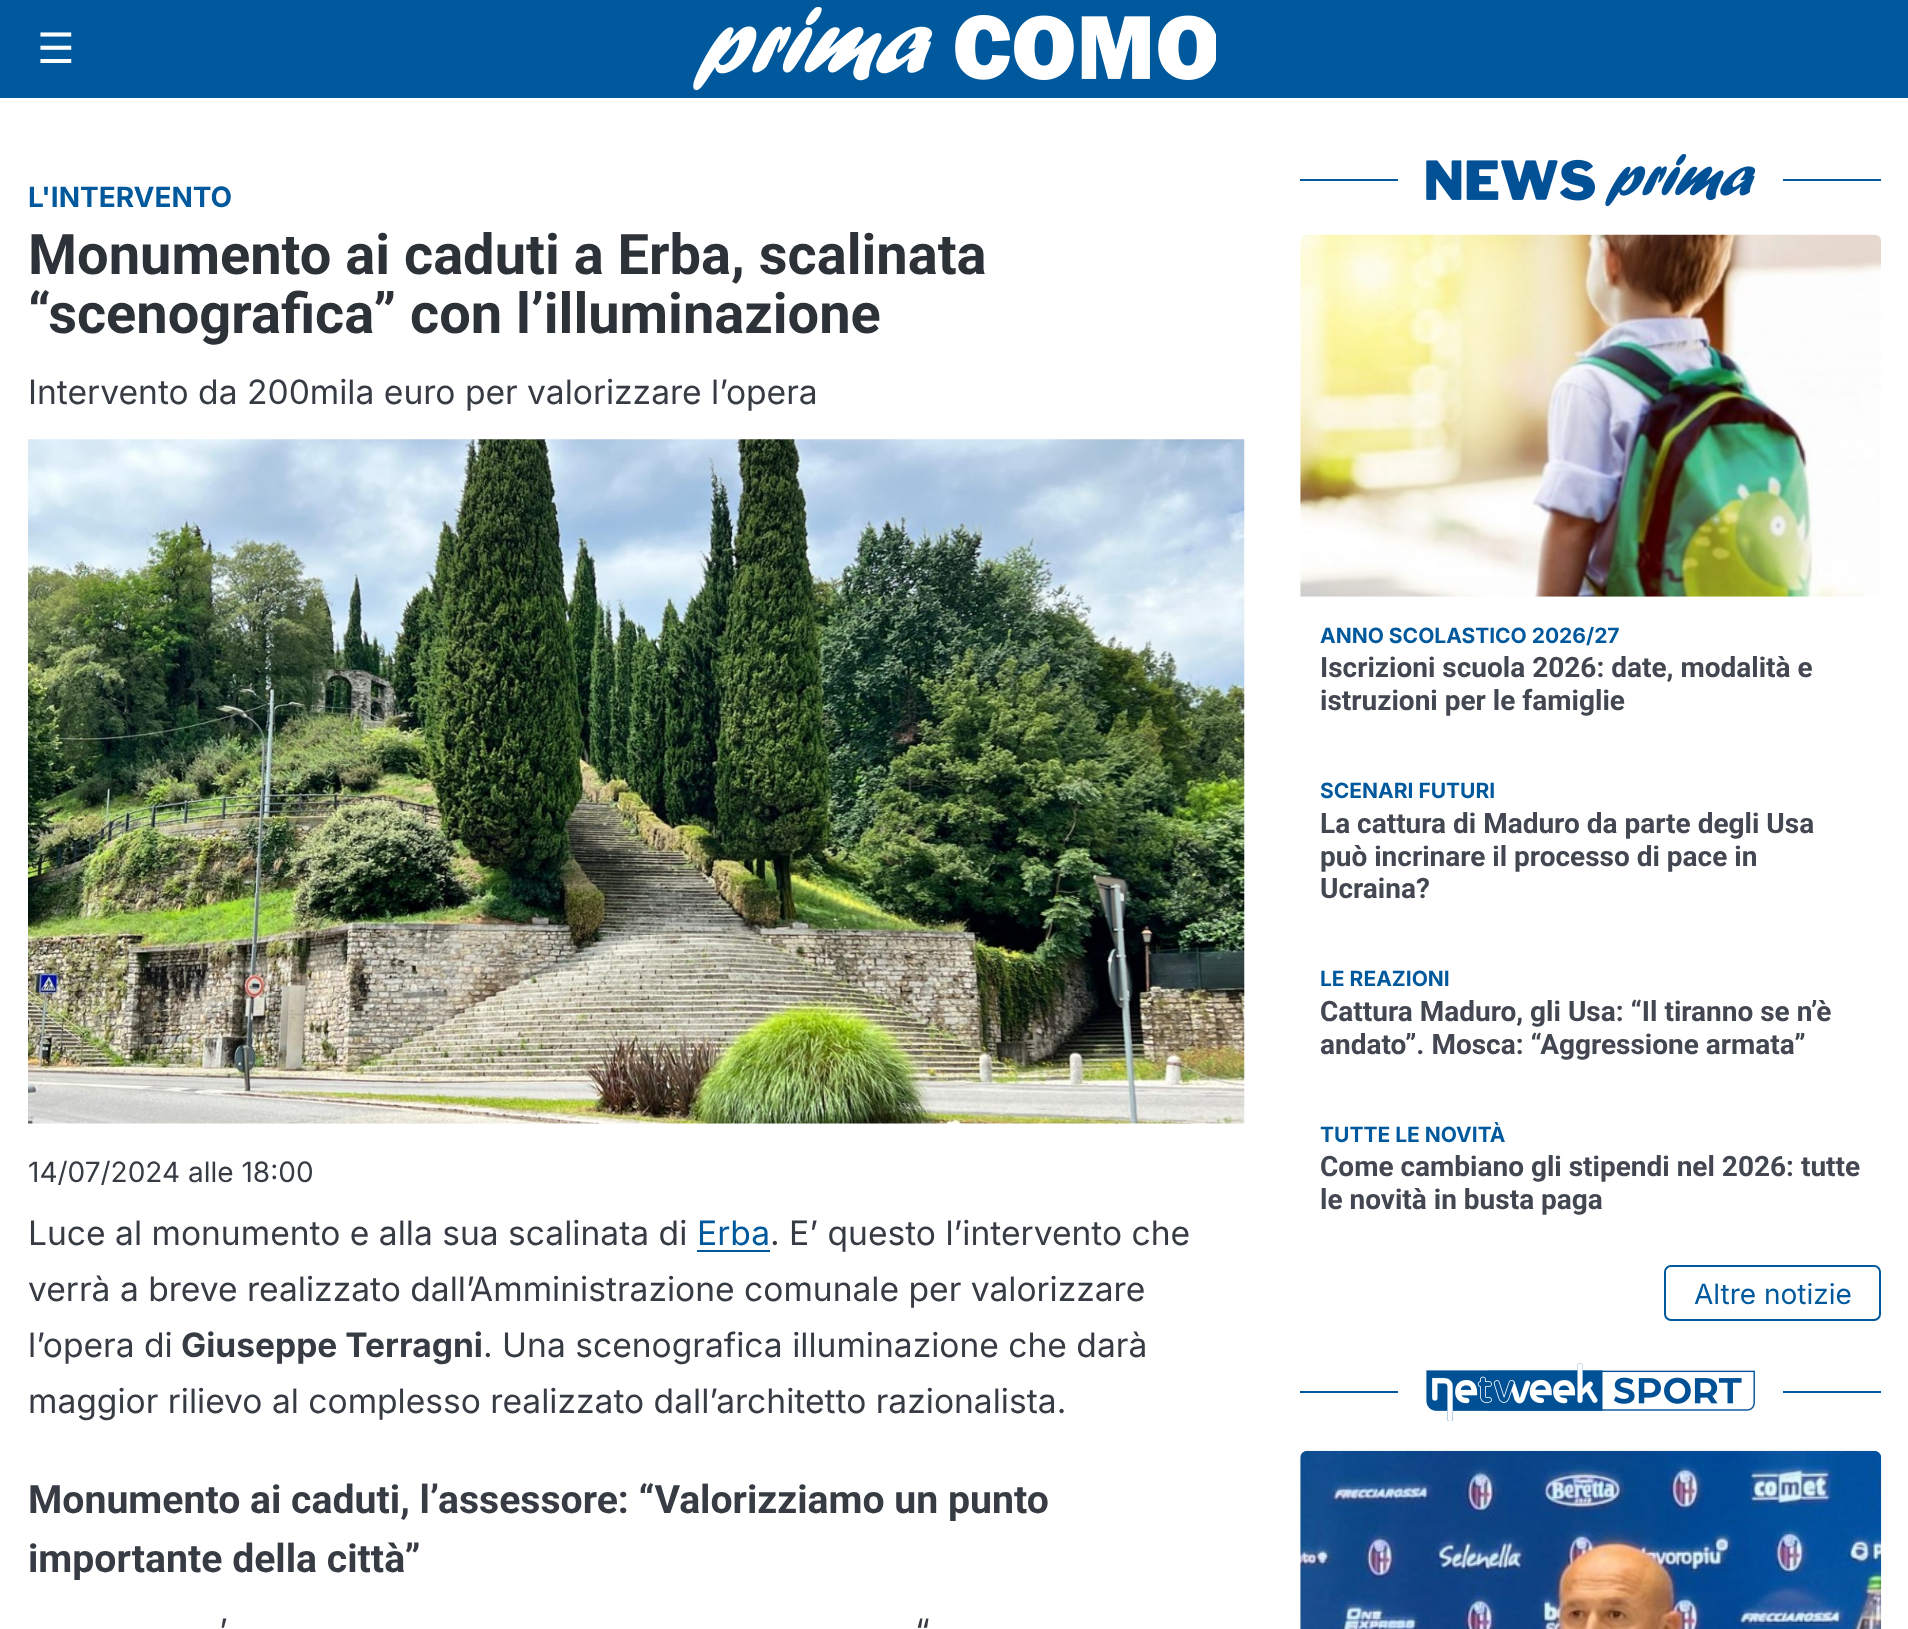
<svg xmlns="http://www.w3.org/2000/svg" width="1908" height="1629">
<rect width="100%" height="100%" fill="#fff"/>
<rect width="1908" height="98" fill="#00599c"/>
<text x="37" y="63" style="font-family:DejaVu Sans;font-size:42px;fill:#fff">☰</text>
<image x="693" y="7" width="523" height="84" href="media/1.png"/>
<text x="28" y="207" style="font-family:Inter;font-size:28px;font-weight:bold;fill:#00599c">L'INTERVENTO</text>
<text x="28" y="274" style="font-family:Roboto;font-size:56px;font-weight:bold;fill:#2d3138">Monumento ai caduti a Erba, scalinata</text>
<text x="28" y="333" style="font-family:Roboto;font-size:56px;font-weight:bold;fill:#2d3138">“scenografica” con l’illuminazione</text>
<text x="28" y="404" style="font-family:Inter;font-size:33.6px;fill:#373c44">Intervento da 200mila euro per valorizzare l’opera</text>
<image x="28" y="439" width="1217" height="685" href="media/2.png"/>
<text x="28" y="1182" style="font-family:Inter;font-size:28px;fill:#373c44">14/07/2024 alle 18:00</text>
<text x="28" y="1245" style="font-family:Inter;font-size:33.6px;fill:#373c44">Luce al monumento e alla sua scalinata di</text>
<text x="697" y="1245" style="font-family:Inter;font-size:33.6px;fill:#00599c">Erba</text>
<rect x="697" y="1250" width="73" height="2" fill="#00599c"/>
<text x="770" y="1245" style="font-family:Inter;font-size:33.6px;fill:#373c44">. E’ questo l’intervento che</text>
<text x="28" y="1301" style="font-family:Inter;font-size:33.6px;fill:#373c44">verrà a breve realizzato dall’Amministrazione comunale per valorizzare</text>
<text x="28" y="1357" style="font-family:Inter;font-size:33.6px;fill:#373c44">l’opera di</text>
<text x="181" y="1357" style="font-family:Inter;font-size:33.6px;font-weight:bold;fill:#373c44">Giuseppe Terragni</text>
<text x="483" y="1357" style="font-family:Inter;font-size:33.6px;fill:#373c44">. Una scenografica illuminazione che darà</text>
<text x="28" y="1413" style="font-family:Inter;font-size:33.6px;fill:#373c44">maggior rilievo al complesso realizzato dall’architetto razionalista.</text>
<text x="28" y="1513" style="font-family:Roboto;font-size:39.2px;font-weight:bold;fill:#373c44">Monumento ai caduti, l’assessore: “Valorizziamo un punto</text>
<text x="28" y="1572" style="font-family:Roboto;font-size:39.2px;font-weight:bold;fill:#373c44">importante della città”</text>
<text x="219" y="1643" style="font-family:Inter;font-size:33.6px;fill:#373c44">’</text>
<text x="915" y="1643" style="font-family:Inter;font-size:33.6px;fill:#373c44">“</text>
<rect x="1300" y="179" width="581" height="2" fill="#00599c"/>
<rect x="1398" y="179" width="385" height="2" fill="#fff"/>
<image x="1426" y="154" width="329" height="53" href="media/3.png"/>
<image x="1300" y="234" width="581" height="363" href="media/4.png"/>
<text x="1320" y="643" style="font-family:Inter;font-size:21px;font-weight:bold;fill:#00599c">ANNO SCOLASTICO 2026/27</text>
<text x="1320" y="677" style="font-family:Roboto;font-size:28px;font-weight:bold;fill:#424751">Iscrizioni scuola 2026: date, modalità e</text>
<text x="1320" y="710" style="font-family:Roboto;font-size:28px;font-weight:bold;fill:#424751">istruzioni per le famiglie</text>
<text x="1320" y="798" style="font-family:Inter;font-size:21px;font-weight:bold;fill:#00599c">SCENARI FUTURI</text>
<text x="1320" y="833" style="font-family:Roboto;font-size:28px;font-weight:bold;fill:#424751">La cattura di Maduro da parte degli Usa</text>
<text x="1320" y="866" style="font-family:Roboto;font-size:28px;font-weight:bold;fill:#424751">può incrinare il processo di pace in</text>
<text x="1320" y="898" style="font-family:Roboto;font-size:28px;font-weight:bold;fill:#424751">Ucraina?</text>
<text x="1320" y="986" style="font-family:Inter;font-size:21px;font-weight:bold;fill:#00599c">LE REAZIONI</text>
<text x="1320" y="1021" style="font-family:Roboto;font-size:28px;font-weight:bold;fill:#424751">Cattura Maduro, gli Usa: “Il tiranno se n’è</text>
<text x="1320" y="1054" style="font-family:Roboto;font-size:28px;font-weight:bold;fill:#424751">andato”. Mosca: “Aggressione armata”</text>
<text x="1320" y="1142" style="font-family:Inter;font-size:21px;font-weight:bold;fill:#00599c">TUTTE LE NOVITÀ</text>
<text x="1320" y="1176" style="font-family:Roboto;font-size:28px;font-weight:bold;fill:#424751">Come cambiano gli stipendi nel 2026: tutte</text>
<text x="1320" y="1209" style="font-family:Roboto;font-size:28px;font-weight:bold;fill:#424751">le novità in busta paga</text>
<rect x="1665" y="1266" width="215" height="54" rx="6" fill="none" stroke="#00599c" stroke-width="2"/>
<text x="1694" y="1304" style="font-family:Inter;font-size:28px;fill:#00599c">Altre notizie</text>
<rect x="1300" y="1391" width="581" height="2" fill="#00599c"/>
<rect x="1398" y="1391" width="385" height="2" fill="#fff"/>
<image x="1426" y="1363" width="329" height="58" href="media/5.png"/>
<image x="1300" y="1450" width="582" height="179" href="media/6.png"/>
</svg>
